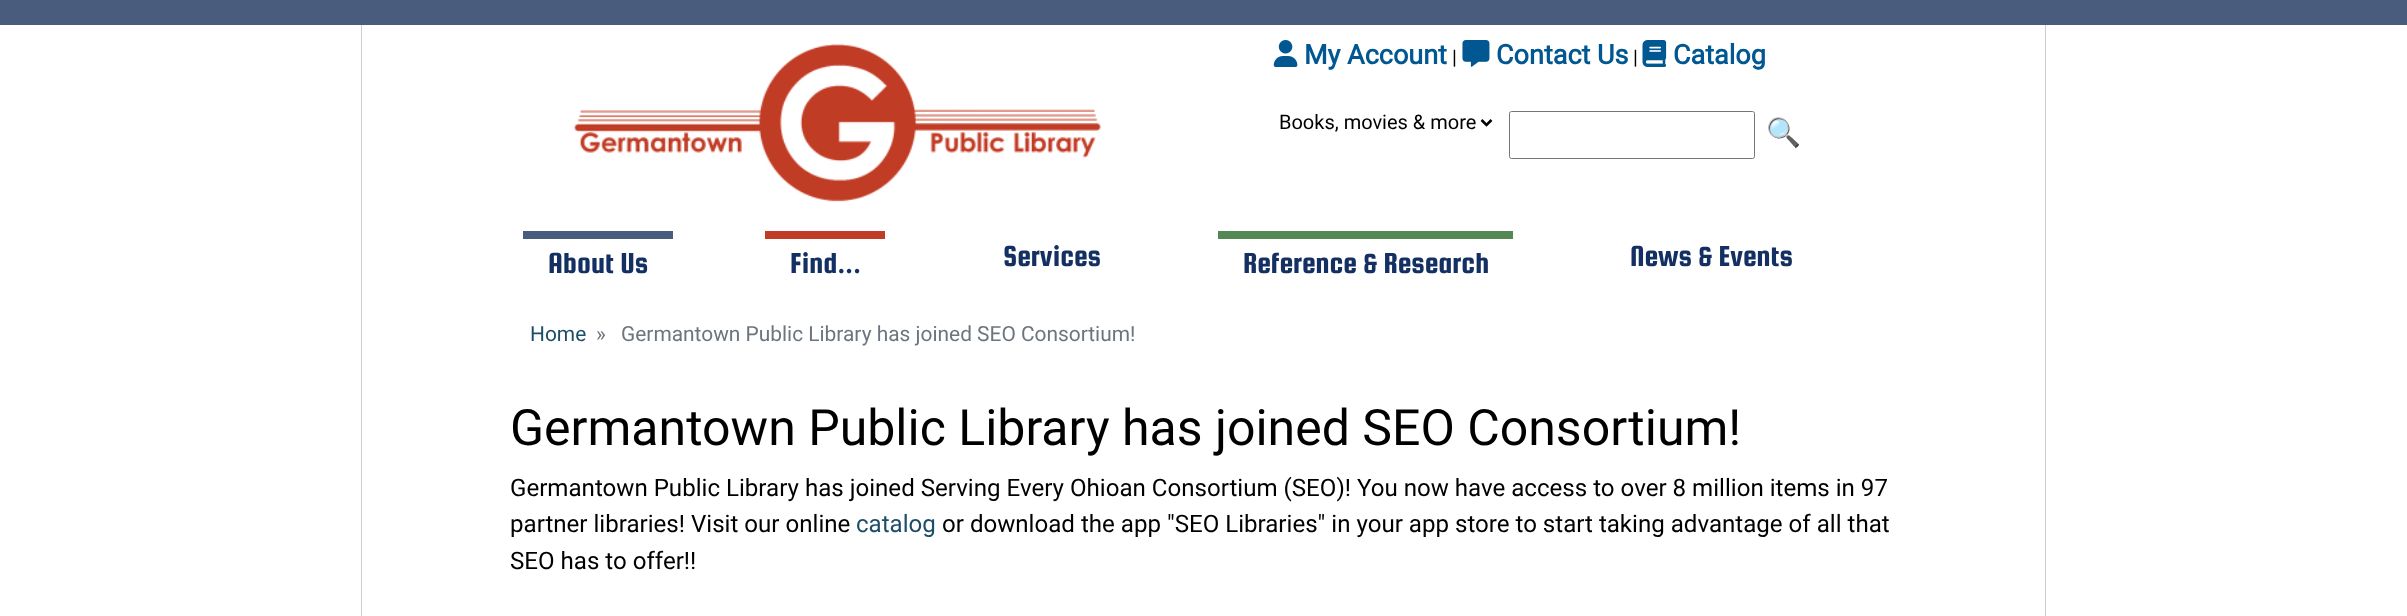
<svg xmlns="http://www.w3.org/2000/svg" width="2407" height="616">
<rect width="100%" height="100%" fill="#fff"/>
<rect width="2407" height="25" fill="#495c7e"/>
<rect x="2045" y="25" width="1" height="591" fill="#ccc"/>
<rect x="361" y="25" width="1" height="591" fill="#ccc"/>
<image x="574" y="43" width="527" height="159" href="media/1.png"/>
<image x="1273" y="40" width="25" height="27" href="media/2.png"/>
<text x="1304" y="64" style="font-family:Roboto;font-size:27px;font-weight:bold;fill:#005792">My Account</text>
<text x="1452" y="64" style="font-family:Roboto;font-size:20px;fill:#000">|</text>
<image x="1462" y="40" width="28" height="27" href="media/3.png"/>
<text x="1496" y="64" style="font-family:Roboto;font-size:27px;font-weight:bold;fill:#005792">Contact Us</text>
<text x="1633" y="64" style="font-family:Roboto;font-size:20px;fill:#000">|</text>
<image x="1642" y="40" width="25" height="27" href="media/4.png"/>
<text x="1673" y="64" style="font-family:Roboto;font-size:27px;font-weight:bold;fill:#005792">Catalog</text>
<path d="M1481.5 120l5 5l5-5" fill="none" stroke="#000" stroke-width="2.5"/>
<text x="1279" y="129" style="font-family:Roboto;font-size:20px;fill:#000">Books, movies &amp; more</text>
<rect x="1509.5" y="111.5" width="245" height="47" rx="2" fill="none" stroke="#767676"/>
<text x="1766" y="142" style="font-family:Noto Color Emoji;font-size:28px;fill:#4b2f15">🔍</text>
<rect x="523" y="231" width="150" height="8" fill="#495c7e"/>
<text x="548" y="273" style="font-family:Squada One;font-size:31px;fill:#143063">About Us</text>
<rect x="765" y="231" width="120" height="8" fill="#c13c24"/>
<text x="790" y="273" style="font-family:Squada One;font-size:31px;fill:#143063">Find...</text>
<text x="1003" y="266" style="font-family:Squada One;font-size:31px;fill:#143063">Services</text>
<rect x="1218" y="231" width="295" height="8" fill="#538753"/>
<text x="1243" y="273" style="font-family:Squada One;font-size:31px;fill:#143063">Reference &amp; Research</text>
<text x="1630" y="266" style="font-family:Squada One;font-size:31px;fill:#143063">News &amp; Events</text>
<text x="530" y="341" style="font-family:Roboto;font-size:20.9px;fill:#1e4d67">Home</text>
<text x="596" y="341" style="font-family:Roboto;font-size:20.9px;fill:#6c757d">»</text>
<text x="621" y="341" style="font-family:Roboto;font-size:20.9px;fill:#6c757d">Germantown Public Library has joined SEO Consortium!</text>
<text x="510" y="445" style="font-family:Roboto;font-size:50px;fill:#000">Germantown Public Library has joined SEO Consortium!</text>
<text x="510" y="496" style="font-family:Roboto;font-size:24.1px;fill:#000">Germantown Public Library has joined Serving Every Ohioan Consortium (SEO)! You now have access to over 8 million items in 97</text>
<text x="510" y="532" style="font-family:Roboto;font-size:24.1px;fill:#000">partner libraries! Visit our online</text>
<text x="856" y="532" style="font-family:Roboto;font-size:24.1px;fill:#1e4d67">catalog</text>
<text x="942" y="532" style="font-family:Roboto;font-size:24.1px;fill:#000">or download the app "SEO Libraries" in your app store to start taking advantage of all that</text>
<text x="510" y="569" style="font-family:Roboto;font-size:24.1px;fill:#000">SEO has to offer!!</text>
</svg>
